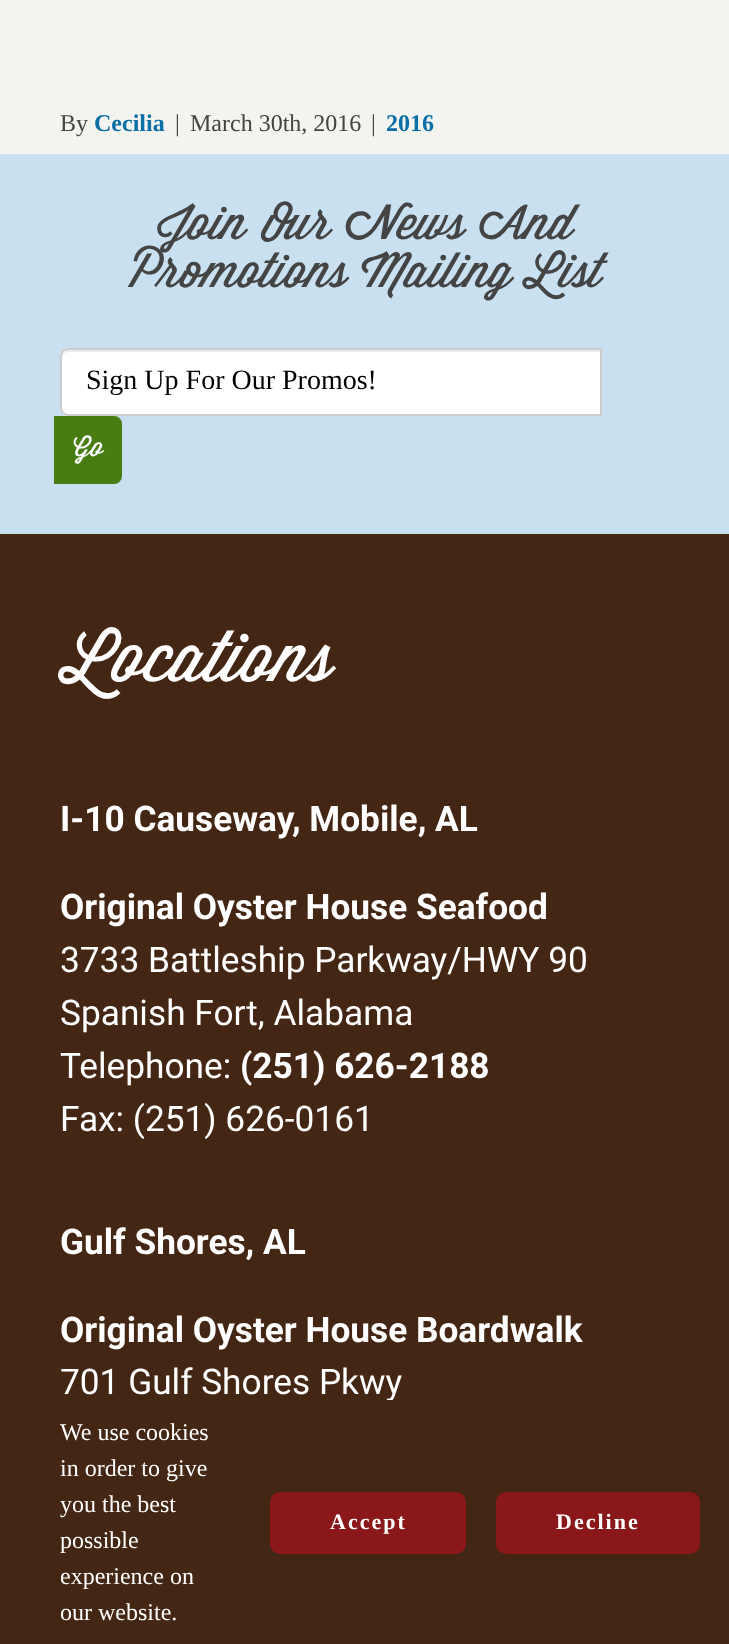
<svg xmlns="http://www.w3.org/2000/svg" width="729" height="1644">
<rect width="100%" height="100%" fill="#f3f3ef"/>
<text x="60" y="131" style="font-family:Liberation Serif;font-size:24px;fill:#444">By</text>
<text x="94" y="131" style="font-family:Liberation Serif;font-size:24px;font-weight:bold;fill:#0a6ea7">Cecilia</text>
<text x="175" y="131" style="font-family:Liberation Serif;font-size:24px;fill:#444">|</text>
<text x="190" y="131" style="font-family:Liberation Serif;font-size:24px;fill:#444">March 30th, 2016</text>
<text x="371" y="131" style="font-family:Liberation Serif;font-size:24px;fill:#444">|</text>
<text x="386" y="131" style="font-family:Liberation Serif;font-size:24px;font-weight:bold;fill:#0a6ea7">2016</text>
<rect y="154" width="729" height="380" fill="#c8e0f0"/>
<text x="156" y="239" style="font-family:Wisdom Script;font-size:48px;fill:#444">Join Our News And</text>
<text x="127" y="287" style="font-family:Wisdom Script;font-size:48px;fill:#444">Promotions Mailing List</text>
<path d="M68 348h534v68h-534c-4.5 0-8-3.5-8-8v-52c0-4.5 3.5-8 8-8z" fill="#fff"/>
<path d="M68 352h532v-2h-532c-3 0-6 3-6 6v2c0-3 3-6 6-6z" fill="#ececec"/>
<path d="M68 349h533v66h-533c-4 0-7-3-7-7v-52c0-4 3-7 7-7z" fill="none" stroke="#ccc" stroke-width="2"/>
<text x="86" y="389" style="font-family:Liberation Serif;font-size:28px;fill:#000">Sign Up For Our Promos!</text>
<path d="M55 417h59c4 0 7 3 7 7v52c0 4-3 7-7 7h-59z" fill="#487d12" stroke="#487d12" stroke-width="2"/>
<text x="73" y="456" style="font-family:Wisdom Script;font-size:27px;fill:#fff">Go</text>
<rect y="534" width="729" height="866" fill="#432614"/>
<text x="60" y="681" style="font-family:Wisdom Script;font-size:70px;fill:#fff">Locations</text>
<text x="60" y="831" style="font-family:Roboto;font-size:35.25px;font-weight:bold;fill:#fff">I-10 Causeway, Mobile, AL</text>
<text x="60" y="919" style="font-family:Roboto;font-size:35.25px;font-weight:bold;fill:#fff">Original Oyster House Seafood</text>
<text x="60" y="972" style="font-family:Roboto;font-size:35.25px;fill:#fff">3733 Battleship Parkway/HWY 90</text>
<text x="60" y="1025" style="font-family:Roboto;font-size:35.25px;fill:#fff">Spanish Fort, Alabama</text>
<text x="60" y="1078" style="font-family:Roboto;font-size:35.25px;fill:#fff">Telephone:</text>
<text x="240" y="1078" style="font-family:Roboto;font-size:35.25px;font-weight:bold;fill:#fff">(251) 626-2188</text>
<text x="60" y="1131" style="font-family:Roboto;font-size:35.25px;fill:#fff">Fax: (251) 626-0161</text>
<text x="60" y="1254" style="font-family:Roboto;font-size:35.25px;font-weight:bold;fill:#fff">Gulf Shores, AL</text>
<text x="60" y="1342" style="font-family:Roboto;font-size:35.25px;font-weight:bold;fill:#fff">Original Oyster House Boardwalk</text>
<text x="60" y="1394" style="font-family:Roboto;font-size:35.25px;fill:#fff">701 Gulf Shores Pkwy</text>
<rect y="1400" width="729" height="244" fill="#432614"/>
<text x="60" y="1440" style="font-family:Liberation Serif;font-size:24px;fill:#fff">We use cookies</text>
<text x="60" y="1476" style="font-family:Liberation Serif;font-size:24px;fill:#fff">in order to give</text>
<text x="60" y="1512" style="font-family:Liberation Serif;font-size:24px;fill:#fff">you the best</text>
<text x="60" y="1548" style="font-family:Liberation Serif;font-size:24px;fill:#fff">possible</text>
<text x="60" y="1584" style="font-family:Liberation Serif;font-size:24px;fill:#fff">experience on</text>
<text x="60" y="1620" style="font-family:Liberation Serif;font-size:24px;fill:#fff">our website.</text>
<rect x="270" y="1492" width="196" height="62" rx="10" fill="#8a181a"/>
<text x="330" y="1529" style="font-family:Liberation Serif;font-size:22px;font-weight:bold;letter-spacing:2px;fill:#fff">Accept</text>
<rect x="496" y="1492" width="204" height="62" rx="10" fill="#8a181a"/>
<text x="556" y="1529" style="font-family:Liberation Serif;font-size:22px;font-weight:bold;letter-spacing:2px;fill:#fff">Decline</text>
</svg>
